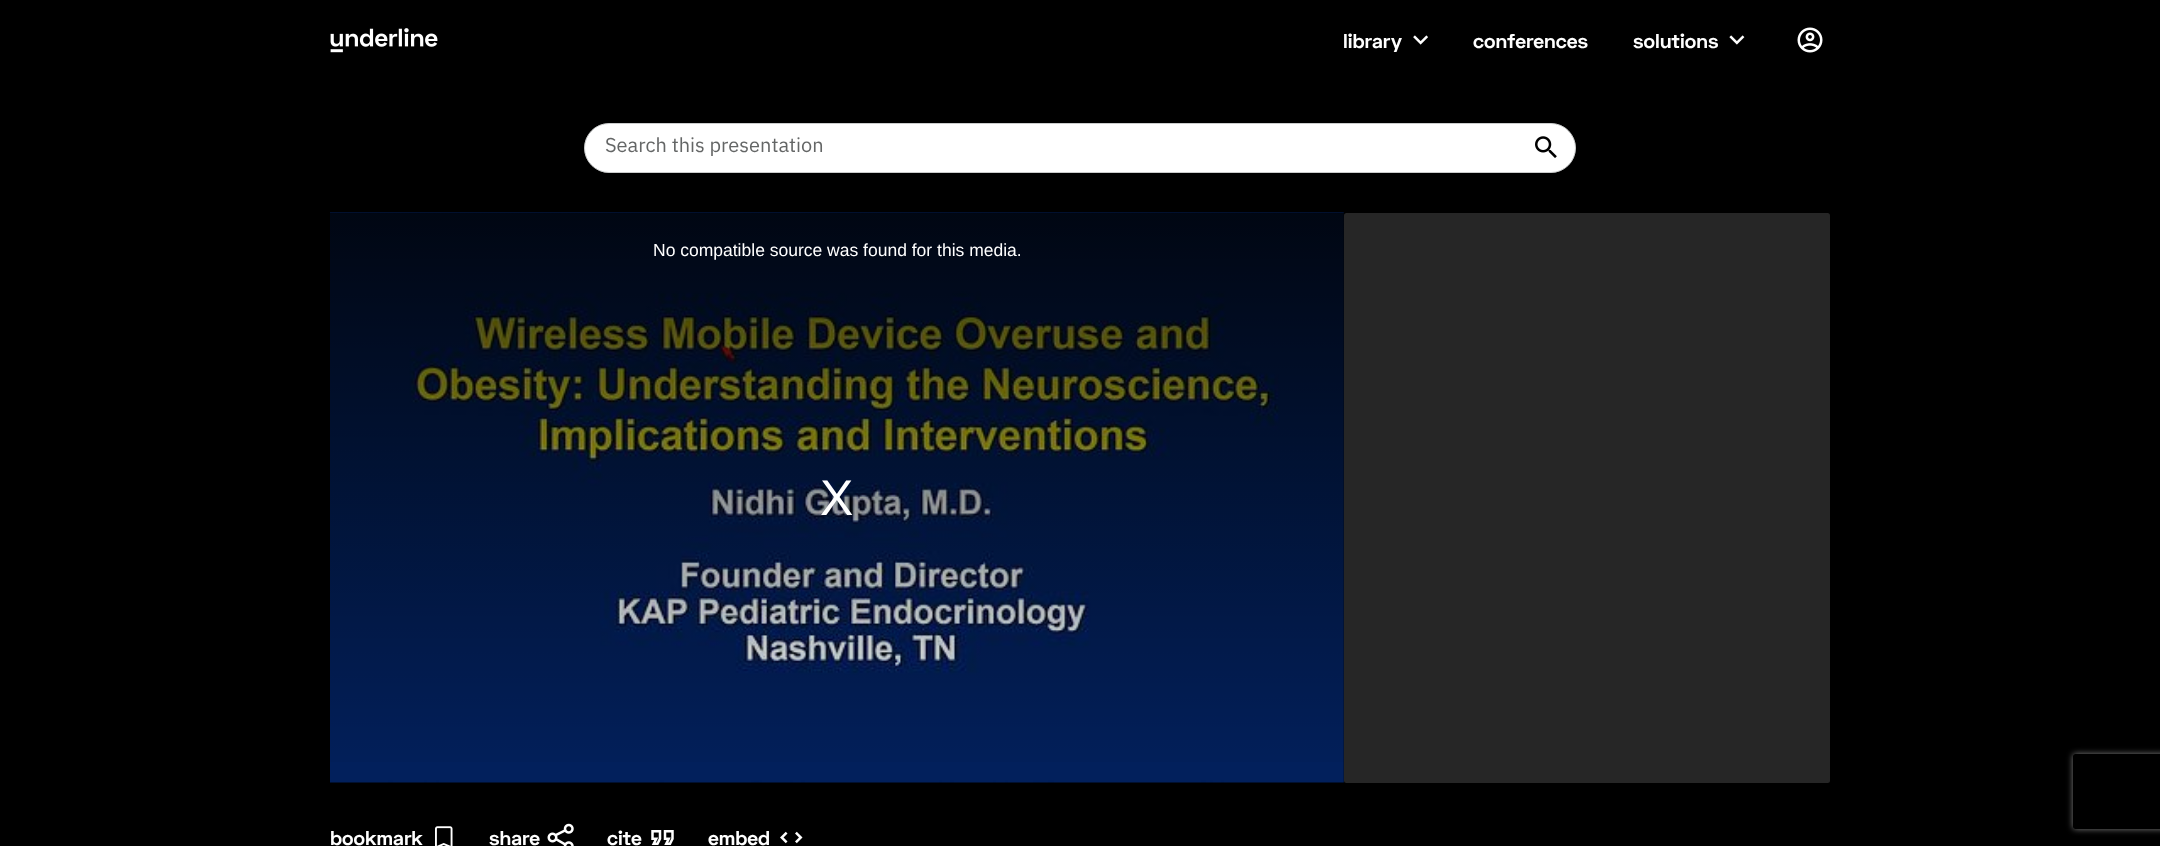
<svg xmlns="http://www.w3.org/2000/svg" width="2160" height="846">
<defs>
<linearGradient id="g1" gradientUnits="userSpaceOnUse" x1="837" y1="212" x2="837" y2="783"><stop offset="0" stop-color="#000" stop-opacity="0.8"/><stop offset="1" stop-color="#000" stop-opacity="0"/></linearGradient>
<clipPath id="clip1"><path d="M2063 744h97v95h-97zm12.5 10h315c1.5 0 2.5 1 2.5 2.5v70c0 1.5-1 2.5-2.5 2.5h-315c-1.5 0-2.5-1-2.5-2.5v-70c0-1.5 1-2.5 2.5-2.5z" clip-rule="evenodd"/></clipPath>
</defs>
<rect width="100%" height="100%" fill="#000"/>
<image x="330" y="28" width="108" height="25" href="media/1.png"/>
<text x="1343" y="48" style="font-family:Space Grotesk;font-size:20px;font-weight:bold;fill:#fff">library</text>
<image x="1413" y="35" width="15" height="10" href="media/2.png"/>
<text x="1473" y="48" style="font-family:Space Grotesk;font-size:20px;font-weight:bold;fill:#fff">conferences</text>
<text x="1633" y="48" style="font-family:Space Grotesk;font-size:20px;font-weight:bold;fill:#fff">solutions</text>
<image x="1729" y="35" width="16" height="10" href="media/3.png"/>
<image x="1797" y="27" width="26" height="26" href="media/4.png"/>
<rect x="584.5" y="123.5" width="991" height="49" rx="24.5" fill="#fff" stroke="#cacccc"/>
<text x="605" y="152" style="font-family:IBM Plex Sans;font-size:20px;fill:#646666">Search this presentation</text>
<image x="1535" y="136" width="22" height="22" href="media/5.png"/>
<image x="330" y="212" width="1014" height="571" href="media/6.png"/>
<rect x="330" y="213" width="1014" height="549" fill="url(#g1)"/>
<text x="653" y="256" style="font-family:Liberation Sans;font-size:17.5px;fill:#fff">No compatible source was found for this media.</text>
<text x="820" y="515" style="font-family:Liberation Sans;font-size:50px;fill:#fff">X</text>
<rect x="1344" y="213" width="486" height="570" rx="2.5" fill="#262626"/>
<text x="330" y="845" style="font-family:Space Grotesk;font-size:20px;font-weight:bold;fill:#fff">bookmark</text>
<image x="435" y="826" width="18" height="20" href="media/7.png"/>
<text x="489" y="845" style="font-family:Space Grotesk;font-size:20px;font-weight:bold;fill:#fff">share</text>
<image x="547" y="823" width="27" height="23" href="media/8.png"/>
<text x="607" y="845" style="font-family:Space Grotesk;font-size:20px;font-weight:bold;fill:#fff">cite</text>
<image x="651" y="830" width="23" height="15" href="media/9.png"/>
<text x="708" y="845" style="font-family:Space Grotesk;font-size:20px;font-weight:bold;fill:#fff">embed</text>
<image x="780" y="831" width="23" height="13" href="media/10.png"/>
<g clip-path="url(#clip1)">
<rect x="2073" y="754" width="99" height="75" rx="2.5" fill="#808080" filter="blur(3px)"/>
</g>
</svg>
